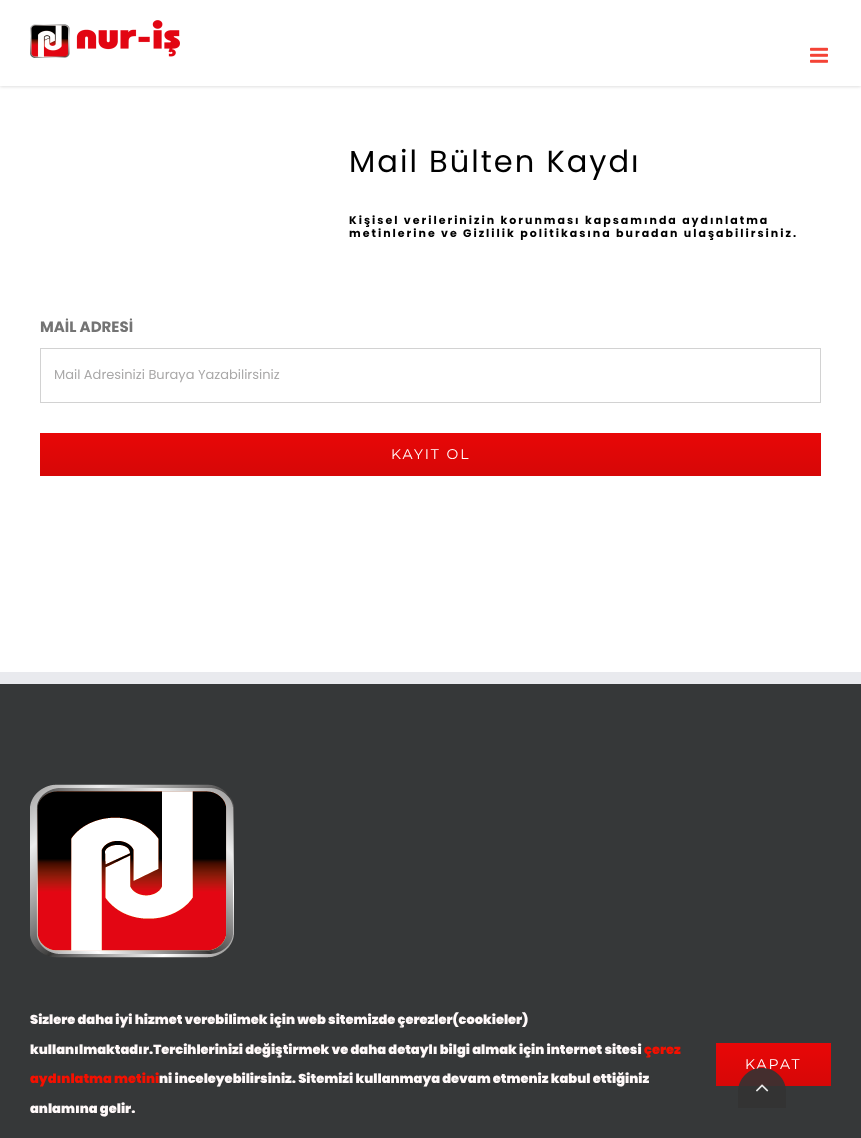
<svg xmlns="http://www.w3.org/2000/svg" width="861" height="1138">
<defs>
<linearGradient id="g1" gradientUnits="userSpaceOnUse" x1="431" y1="433" x2="431" y2="476"><stop offset="0" stop-color="#e80707"/><stop offset="1" stop-color="#d60707"/></linearGradient>
<linearGradient id="g2" gradientUnits="userSpaceOnUse" x1="774" y1="1043" x2="774" y2="1086"><stop offset="0" stop-color="#e80707"/><stop offset="1" stop-color="#d60707"/></linearGradient>
</defs>
<rect width="100%" height="100%" fill="#fff"/>
<rect y="1" width="861" height="86" fill="#0000001f" filter="blur(1.5px)"/>
<rect width="861" height="86" fill="#fff"/>
<image x="30" y="20" width="150" height="38" href="media/1.png"/>
<image x="810" y="47" width="18" height="16" href="media/2.png"/>
<text x="349" y="172" style="font-family:Poppins;font-size:30.5px;letter-spacing:2px;fill:#000">Mail Bülten Kaydı</text>
<text x="349" y="224" style="font-family:Poppins;font-size:11px;font-weight:bold;letter-spacing:2px;fill:#000">Kişisel verilerinizin korunması kapsamında aydınlatma</text>
<text x="349" y="237" style="font-family:Poppins;font-size:11px;font-weight:bold;letter-spacing:2px;fill:#000">metinlerine ve Gizlilik politikasına buradan ulaşabilirsiniz.</text>
<text x="40" y="332" style="font-family:Poppins;font-size:15px;font-weight:bold;fill:#747474">MAİL ADRESİ</text>
<rect x="40.5" y="348.5" width="780" height="54" fill="none" stroke="#d2d2d2"/>
<text x="54" y="379" style="font-family:Poppins;font-size:13px;fill:#aaa9a9">Mail Adresinizi Buraya Yazabilirsiniz</text>
<rect x="40" y="433" width="781" height="43" fill="url(#g1)"/>
<text x="391" y="459" style="font-family:Montserrat;font-size:14px;letter-spacing:2px;fill:#fff">KAYIT OL</text>
<rect y="684" width="861" height="454" fill="#363839"/>
<rect y="672" width="861" height="12" fill="#e9eaee"/>
<image x="30" y="784" width="204" height="174" href="media/3.png"/>
<text x="30" y="1024" style="font-family:Poppins;font-size:13px;font-weight:900;fill:#fff9f9">Sizlere daha iyi hizmet verebilimek için web sitemizde çerezler(cookieler)</text>
<text x="30" y="1054" style="font-family:Poppins;font-size:13px;font-weight:900;fill:#fff9f9">kullanılmaktadır.Tercihlerinizi değiştirmek ve daha detaylı bilgi almak için internet sitesi</text>
<text x="644" y="1054" style="font-family:Poppins;font-size:13px;font-weight:900;fill:#f41000">çerez</text>
<text x="30" y="1083" style="font-family:Poppins;font-size:13px;font-weight:900;fill:#f41000">aydınlatma metini</text>
<text x="159" y="1083" style="font-family:Poppins;font-size:13px;font-weight:900;fill:#fff9f9">ni inceleyebilirsiniz. Sitemizi kullanmaya devam etmeniz kabul ettiğiniz</text>
<text x="30" y="1113" style="font-family:Poppins;font-size:13px;font-weight:900;fill:#fff9f9">anlamına gelir.</text>
<rect x="716" y="1043" width="115" height="43" fill="url(#g2)"/>
<text x="745" y="1069" style="font-family:Montserrat;font-size:14px;letter-spacing:2px;fill:#fff">KAPAT</text>
<path d="M762 1068c13.5 0 24 10.5 24 24v16h-48v-16c0-13.5 10.5-24 24-24z" fill="#333333e6"/>
<image x="756" y="1084" width="13" height="8" href="media/4.png"/>
</svg>
